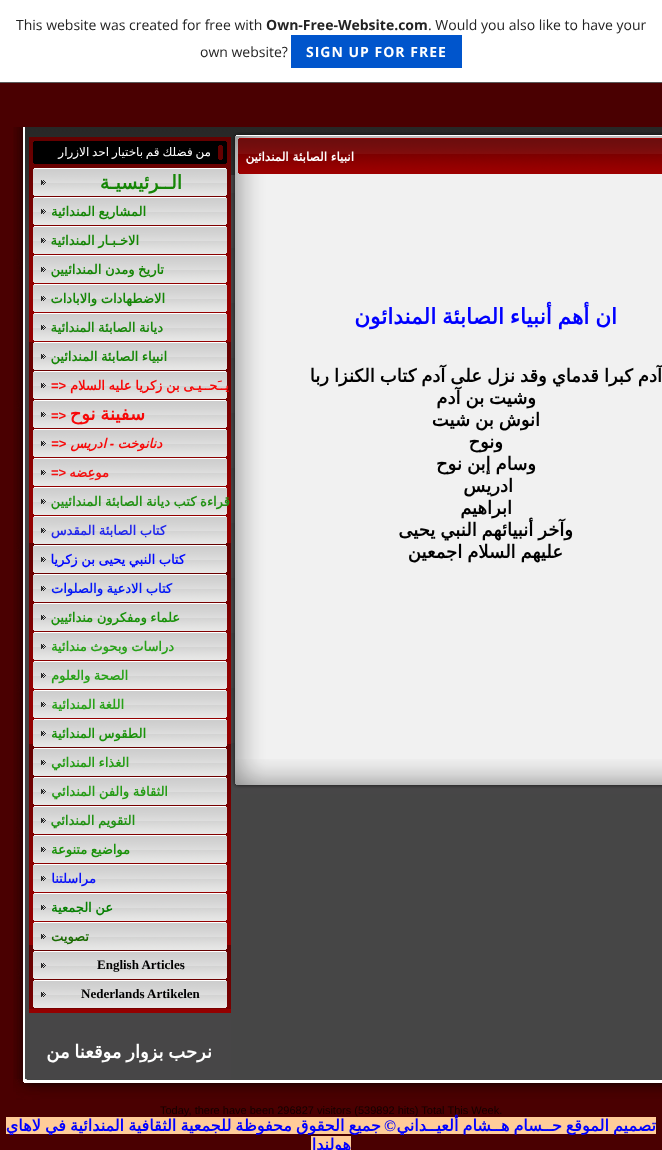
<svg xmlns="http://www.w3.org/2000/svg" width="662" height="1150">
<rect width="100%" height="100%" fill="#4a0001"/>
<rect width="662" height="82" fill="#fff"/>
<rect y="82" width="662" height="1" fill="#5a5a5a"/>
<text x="428" y="30" style="font-family:Open Sans;font-size:14px;fill:#232323">. Would you also like to have your</text>
<text x="266" y="30" style="font-family:Open Sans;font-size:14px;font-weight:bold;fill:#232323">Own-Free-Website.com</text>
<text x="16" y="30" style="font-family:Open Sans;font-size:14px;fill:#232323">This website was created for free with</text>
<rect x="291" y="35" width="171" height="33" fill="#05c"/>
<text x="306" y="57" style="font-family:Open Sans;font-size:14px;font-weight:bold;letter-spacing:1px;fill:#fff">SIGN UP FOR FREE</text>
<text x="200" y="57" style="font-family:Open Sans;font-size:14px;fill:#232323">own website?</text>
<image x="23" y="127" width="639" height="952" href="media/1.png"/>
<image x="231" y="127" width="431" height="11" href="media/2.png"/>
<image x="233" y="132" width="429" height="6" href="media/3.png"/>
<image x="231" y="175" width="431" height="619" href="media/4.png"/>
<image x="231" y="138" width="431" height="37" href="media/5.png"/>
<text x="354" y="161" style="font-family:DejaVu Sans;font-size:12px;font-weight:bold;direction:rtl;fill:#fff">انبياء الصابئة المندائين</text>
<text x="617" y="324" word-spacing="-1" style="font-family:DejaVu Sans;font-size:21.6px;font-weight:bold;direction:rtl;fill:#00f">ان أهم أنبياء الصابئة المندائون</text>
<text x="662" y="382" word-spacing="-0.75" style="font-family:DejaVu Sans;font-size:18px;font-weight:bold;direction:rtl;fill:#000">آدم كبرا قدماي وقد نزل على آدم كتاب الكنزا ربا</text>
<text x="536" y="404" word-spacing="-0.75" style="font-family:DejaVu Sans;font-size:18px;font-weight:bold;direction:rtl;fill:#000">وشيت بن آدم</text>
<text x="540" y="426" word-spacing="-0.75" style="font-family:DejaVu Sans;font-size:18px;font-weight:bold;direction:rtl;fill:#000">انوش بن شيت</text>
<text x="503" y="448" style="font-family:DejaVu Sans;font-size:18px;font-weight:bold;direction:rtl;fill:#000">ونوح</text>
<text x="536" y="470" word-spacing="-0.75" style="font-family:DejaVu Sans;font-size:18px;font-weight:bold;direction:rtl;fill:#000">وسام إبن نوح</text>
<text x="513" y="492" style="font-family:DejaVu Sans;font-size:18px;font-weight:bold;direction:rtl;fill:#000">ادريس</text>
<text x="512" y="514" style="font-family:DejaVu Sans;font-size:18px;font-weight:bold;direction:rtl;fill:#000">ابراهيم</text>
<text x="573" y="536" word-spacing="-0.75" style="font-family:DejaVu Sans;font-size:18px;font-weight:bold;direction:rtl;fill:#000">وآخر أنبيائهم النبي يحيى</text>
<text x="563" y="558" word-spacing="-0.75" style="font-family:DejaVu Sans;font-size:18px;font-weight:bold;direction:rtl;fill:#000">عليهم السلام اجمعين</text>
<image x="232" y="759" width="430" height="35" href="media/6.png"/>
<image x="25" y="127" width="206" height="952" href="media/7.png"/>
<rect x="29" y="137" width="202" height="4" fill="#640000"/>
<image x="29" y="141" width="202" height="868" href="media/8.png"/>
<image x="33" y="141" width="194" height="23" href="media/9.png"/>
<text x="211" y="156" word-spacing="-1" style="font-family:DejaVu Sans;font-size:12px;direction:rtl;fill:#fff">من فضلك قم باختيار احد الازرار</text>
<image x="33" y="168" width="194" height="28" href="media/10.png"/>
<text x="182" y="189" style="font-family:DejaVu Sans;font-size:19px;font-weight:bold;direction:rtl;fill:#158606">الــرئيسيـة</text>
<image x="33" y="197" width="194" height="28" href="media/11.png"/>
<text x="146" y="216" word-spacing="-0.5" style="font-family:DejaVu Sans;font-size:13px;font-weight:bold;direction:rtl;fill:#158606">المشاريع المندائية</text>
<image x="33" y="226" width="194" height="28" href="media/12.png"/>
<text x="139" y="245" word-spacing="-0.5" style="font-family:DejaVu Sans;font-size:13px;font-weight:bold;direction:rtl;fill:#158606">الاخـبـار المندائية</text>
<image x="33" y="255" width="194" height="28" href="media/13.png"/>
<text x="164" y="274" word-spacing="-0.5" style="font-family:DejaVu Sans;font-size:13px;font-weight:bold;direction:rtl;fill:#158606">تاريخ ومدن المندائيين</text>
<image x="33" y="284" width="194" height="28" href="media/14.png"/>
<text x="165" y="303" word-spacing="-0.5" style="font-family:DejaVu Sans;font-size:13px;font-weight:bold;direction:rtl;fill:#158606">الاضطهادات والابادات</text>
<image x="33" y="313" width="194" height="28" href="media/15.png"/>
<text x="163" y="332" word-spacing="-0.5" style="font-family:DejaVu Sans;font-size:13px;font-weight:bold;direction:rtl;fill:#1a880c">ديانة الصابئة المندائية</text>
<image x="33" y="342" width="194" height="28" href="media/16.png"/>
<text x="167" y="361" word-spacing="-0.5" style="font-family:DejaVu Sans;font-size:13px;font-weight:bold;direction:rtl;fill:#158606">انبياء الصابئة المندائين</text>
<image x="33" y="371" width="194" height="28" href="media/17.png"/>
<text x="229" y="390" word-spacing="-0.5" style="font-family:DejaVu Sans;font-size:13px;font-weight:bold;direction:rtl;fill:#f70808">يــَحــيـى بن زكريا عليه السلام</text>
<text x="51" y="390" style="font-family:Liberation Sans;font-size:13px;font-weight:bold;fill:#f70808">=&gt;</text>
<image x="33" y="400" width="194" height="28" href="media/18.png"/>
<text x="145" y="420" word-spacing="-1" style="font-family:DejaVu Sans;font-size:18px;font-weight:bold;direction:rtl;fill:#f70808">سفينة نوح</text>
<text x="51" y="420" style="font-family:Liberation Sans;font-size:13px;font-weight:bold;fill:#f70808">=&gt;</text>
<image x="33" y="429" width="194" height="28" href="media/19.png"/>
<text x="162" y="448" style="font-family:DejaVu Sans;font-size:13px;font-weight:bold;font-style:italic;direction:rtl;fill:#f70808">دنانوخت</text>
<text x="114" y="448" style="font-family:Liberation Sans;font-size:13px;font-weight:bold;font-style:italic;direction:rtl;fill:#f70808">-</text>
<text x="106" y="448" style="font-family:DejaVu Sans;font-size:13px;font-weight:bold;font-style:italic;direction:rtl;fill:#f70808">ادريس</text>
<text x="51" y="448" style="font-family:Liberation Sans;font-size:13px;font-weight:bold;font-style:italic;fill:#f70808">=&gt;</text>
<image x="33" y="458" width="194" height="28" href="media/20.png"/>
<text x="109" y="477" style="font-family:DejaVu Sans;font-size:13px;font-weight:bold;direction:rtl;fill:#f30f0f">موعِضه</text>
<text x="51" y="477" style="font-family:Liberation Sans;font-size:13px;font-weight:bold;fill:#f30f0f">=&gt;</text>
<image x="33" y="487" width="194" height="28" href="media/14.png"/>
<text x="230" y="506" word-spacing="-0.5" style="font-family:DejaVu Sans;font-size:13px;font-weight:bold;direction:rtl;fill:#219213">قراءة كتب ديانة الصابئة المندائيين</text>
<image x="33" y="516" width="194" height="28" href="media/21.png"/>
<text x="166" y="535" word-spacing="-0.5" style="font-family:DejaVu Sans;font-size:13px;font-weight:bold;direction:rtl;fill:#2026ec">كتاب الصابئة المقدس</text>
<image x="33" y="545" width="194" height="28" href="media/22.png"/>
<text x="185" y="564" word-spacing="-0.5" style="font-family:DejaVu Sans;font-size:13px;font-weight:bold;direction:rtl;fill:#0008ff">كتاب النبي يحيى بن زكريا</text>
<image x="33" y="574" width="194" height="28" href="media/23.png"/>
<text x="172" y="593" word-spacing="-0.5" style="font-family:DejaVu Sans;font-size:13px;font-weight:bold;direction:rtl;fill:#0318f7">كتاب الادعية والصلوات</text>
<image x="33" y="603" width="194" height="28" href="media/24.png"/>
<text x="180" y="622" word-spacing="-0.5" style="font-family:DejaVu Sans;font-size:13px;font-weight:bold;direction:rtl;fill:#1a920a">علماء ومفكرون مندائيين</text>
<image x="33" y="632" width="194" height="28" href="media/25.png"/>
<text x="174" y="651" word-spacing="-0.5" style="font-family:DejaVu Sans;font-size:13px;font-weight:bold;direction:rtl;fill:#28a218">دراسات وبحوث مندائية</text>
<image x="33" y="661" width="194" height="28" href="media/26.png"/>
<text x="128" y="680" word-spacing="-0.5" style="font-family:DejaVu Sans;font-size:13px;font-weight:bold;direction:rtl;fill:#28a218">الصحة والعلوم</text>
<image x="33" y="690" width="194" height="28" href="media/27.png"/>
<text x="124" y="709" word-spacing="-0.5" style="font-family:DejaVu Sans;font-size:13px;font-weight:bold;direction:rtl;fill:#28a218">اللغة المندائية</text>
<image x="33" y="719" width="194" height="28" href="media/21.png"/>
<text x="146" y="738" word-spacing="-0.5" style="font-family:DejaVu Sans;font-size:13px;font-weight:bold;direction:rtl;fill:#1a920a">الطقوس المندائية</text>
<image x="33" y="748" width="194" height="28" href="media/28.png"/>
<text x="129" y="767" word-spacing="-0.5" style="font-family:DejaVu Sans;font-size:13px;font-weight:bold;direction:rtl;fill:#259c15">الغذاء المندائي</text>
<image x="33" y="777" width="194" height="28" href="media/29.png"/>
<text x="168" y="796" word-spacing="-0.5" style="font-family:DejaVu Sans;font-size:13px;font-weight:bold;direction:rtl;fill:#259c15">الثقافة والفن المندائي</text>
<image x="33" y="806" width="194" height="28" href="media/30.png"/>
<text x="135" y="825" word-spacing="-0.5" style="font-family:DejaVu Sans;font-size:13px;font-weight:bold;direction:rtl;fill:#219213">التقويم المندائي</text>
<image x="33" y="835" width="194" height="28" href="media/31.png"/>
<text x="130" y="854" word-spacing="-0.5" style="font-family:DejaVu Sans;font-size:13px;font-weight:bold;direction:rtl;fill:#1a920a">مواضيع متنوعة</text>
<image x="33" y="864" width="194" height="28" href="media/32.png"/>
<text x="96" y="883" style="font-family:DejaVu Sans;font-size:13px;font-weight:bold;direction:rtl;fill:#0a12f8">مراسلتنا</text>
<image x="33" y="893" width="194" height="28" href="media/27.png"/>
<text x="113" y="912" word-spacing="-0.5" style="font-family:DejaVu Sans;font-size:13px;font-weight:bold;direction:rtl;fill:#088104">عن الجمعية</text>
<image x="33" y="922" width="194" height="28" href="media/21.png"/>
<text x="89" y="941" style="font-family:DejaVu Sans;font-size:13px;font-weight:bold;direction:rtl;fill:#196b00">تصويت</text>
<image x="33" y="951" width="194" height="28" href="media/33.png"/>
<text x="97" y="969" style="font-family:Liberation Serif;font-size:13px;font-weight:bold;fill:#000">English Articles</text>
<image x="33" y="980" width="194" height="28" href="media/34.png"/>
<text x="81" y="998" style="font-family:Liberation Serif;font-size:13px;font-weight:bold;fill:#000">Nederlands Artikelen</text>
<rect x="29" y="1009" width="202" height="4" fill="#940000"/>
<text x="212" y="1058" word-spacing="-1" style="font-family:DejaVu Sans;font-size:18px;font-weight:bold;direction:rtl;fill:#fff">نرحب بزوار موقعنا من</text>
<image x="13" y="127" width="10" height="952" href="media/35.png"/>
<image x="13" y="1079" width="649" height="25" href="media/36.png"/>
<text x="160" y="1114" style="font-family:Liberation Sans;font-size:11px;fill:#130202">Today, there have been 296827 visitors (539892 hits) Total This Week.</text>
<rect x="6" y="1117" width="650" height="17" fill="#fc9"/>
<text x="656" y="1131" word-spacing="-1" style="font-family:DejaVu Sans;font-size:16px;font-weight:bold;direction:rtl;fill:#00f">تصميم الموقع حــسام هــشام ألعيــداني</text>
<text x="381" y="1131" word-spacing="-1" style="font-family:DejaVu Sans;font-size:16px;font-weight:bold;direction:rtl;fill:#00f">جميع الحقوق محفوظة للجمعية الثقافية المندائية في لاهاي</text>
<text x="396" y="1131" style="font-family:Liberation Serif;font-size:16px;font-weight:bold;direction:rtl;fill:#00f">©</text>
<rect x="311" y="1136" width="40" height="14" fill="#fc9"/>
<text x="351" y="1150" style="font-family:DejaVu Sans;font-size:16px;font-weight:bold;direction:rtl;fill:#00f">هولندا</text>
</svg>
